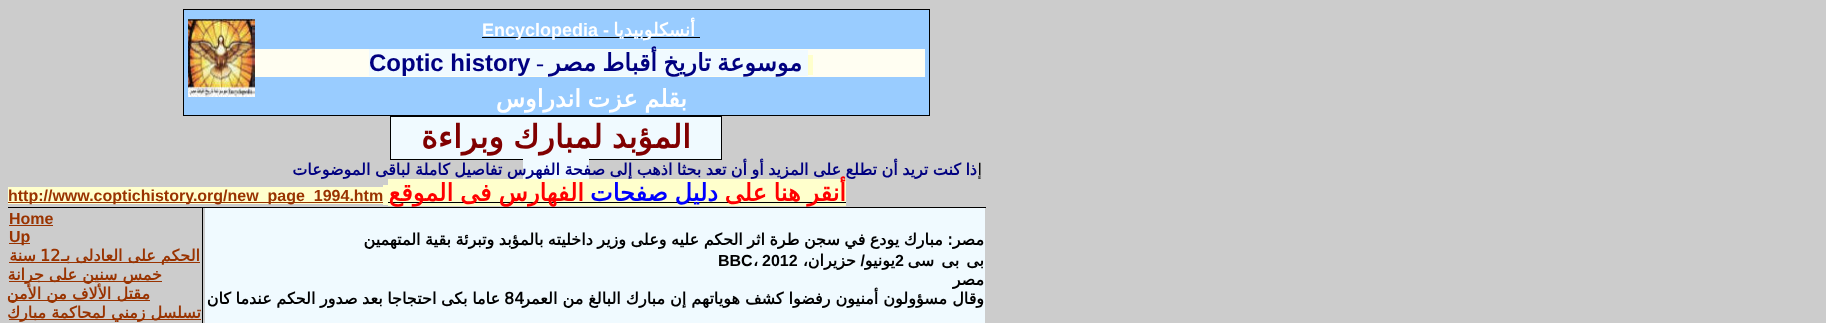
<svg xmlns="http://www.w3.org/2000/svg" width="1826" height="323">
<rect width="100%" height="100%" fill="#ccc"/>
<rect x="183.5" y="9.5" width="746" height="106" fill="#9cf" stroke="#000"/>
<rect x="482" y="37" width="218" height="1" fill="#000"/>
<text x="695" y="36" style="font-family:DejaVu Sans;font-size:18px;font-weight:bold;direction:rtl;fill:#fff">أنسكلوبيديا</text>
<text x="482" y="36" style="font-family:Liberation Sans;font-size:18px;font-weight:bold;fill:#fff">Encyclopedia -</text>
<image x="188" y="19" width="67" height="78" href="media/1.png"/>
<rect x="255" y="49" width="670" height="28" fill="#fffef2"/>
<rect x="530" y="50" width="278" height="26" fill="#f0faff"/>
<text x="802" y="71" word-spacing="-1.5" style="font-family:DejaVu Sans;font-size:24px;font-weight:bold;direction:rtl;fill:#000080">موسوعة تاريخ أقباط مصر</text>
<rect x="808" y="55" width="5" height="20" fill="#ffc"/>
<text x="536" y="71" style="font-family:Liberation Serif;font-size:24px;fill:#000080">-</text>
<rect x="369" y="49" width="161" height="27" fill="#f0faff"/>
<text x="369" y="71" style="font-family:Liberation Sans;font-size:24px;font-weight:bold;fill:#000080">Coptic history</text>
<text x="687" y="107" word-spacing="-1" style="font-family:DejaVu Sans;font-size:24px;font-weight:bold;direction:rtl;fill:#fff">بقلم عزت اندراوس</text>
<rect x="390.5" y="116.5" width="331" height="43" fill="#f0faff" stroke="#000"/>
<text x="691" y="148" word-spacing="-1" style="font-family:DejaVu Sans;font-size:32px;font-weight:bold;direction:rtl;fill:#800000">المؤبد لمبارك وبراءة</text>
<rect x="523" y="159" width="66" height="20" fill="#f0faff"/>
<rect x="8" y="207" width="978" height="1" fill="#000"/>
<text x="982" y="175" style="font-family:DejaVu Sans;font-size:16px;direction:rtl;fill:#000">إ</text>
<text x="977" y="175" word-spacing="-0.6" style="font-family:DejaVu Sans;font-size:16px;font-weight:bold;direction:rtl;fill:#000080">ذا كنت تريد أن تطلع على المزيد أو أن تعد بحثا اذهب إلى صفحة الفهرس تفاصيل كاملة لباقى الموضوعات</text>
<rect x="388" y="179" width="458" height="27" fill="#ffc"/>
<rect x="388" y="202" width="458" height="1" fill="#000"/>
<text x="846" y="201" word-spacing="-1" style="font-family:DejaVu Sans;font-size:24px;font-weight:bold;direction:rtl;fill:#f00">أنقر هنا على</text>
<text x="718" y="201" word-spacing="-1" style="font-family:DejaVu Sans;font-size:24px;font-weight:bold;direction:rtl;fill:#00f">دليل صفحات</text>
<text x="584" y="201" word-spacing="-0.6" style="font-family:DejaVu Sans;font-size:24px;font-weight:bold;direction:rtl;fill:#f00">الفهارس فى الموقع</text>
<rect x="383" y="185" width="5" height="20" fill="#ffc"/>
<rect x="8" y="187" width="375" height="17" fill="#ffc"/>
<rect x="8" y="202" width="375" height="1" fill="#930"/>
<text x="8" y="201" style="font-family:Liberation Sans;font-size:16px;font-weight:bold;fill:#930">http://www.coptichistory.org/new_page_1994.htm</text>
<rect x="205" y="208" width="780" height="115" fill="#f0faff"/>
<text x="984" y="245" word-spacing="-0.6" style="font-family:DejaVu Sans;font-size:16px;font-weight:bold;direction:rtl;fill:#000">مصر: مبارك يودع في سجن طرة اثر الحكم عليه وعلى وزير داخليته بالمؤبد وتبرئة بقية المتهمين</text>
<text x="984" y="266" word-spacing="2" style="font-family:DejaVu Sans;font-size:16px;font-weight:bold;direction:rtl;fill:#000">بى بى سى</text>
<text x="895" y="266" style="font-family:Liberation Sans;font-size:16px;font-weight:bold;fill:#000">2</text>
<text x="865" y="266" style="font-family:Liberation Sans;font-size:16px;font-weight:bold;direction:rtl;fill:#000">/</text>
<text x="895" y="266" style="font-family:DejaVu Sans;font-size:16px;font-weight:bold;direction:rtl;fill:#000">يونيو</text>
<text x="856" y="266" style="font-family:DejaVu Sans;font-size:16px;font-weight:bold;direction:rtl;fill:#000">حزيران،</text>
<text x="762" y="266" style="font-family:Liberation Sans;font-size:16px;font-weight:bold;fill:#000">2012</text>
<text x="753" y="266" style="font-family:DejaVu Sans;font-size:16px;font-weight:bold;fill:#000">،</text>
<text x="718" y="266" style="font-family:Liberation Sans;font-size:16px;font-weight:bold;fill:#000">BBC</text>
<text x="984" y="285" style="font-family:DejaVu Sans;font-size:16px;font-weight:bold;direction:rtl;fill:#000">مصر</text>
<text x="504" y="304" style="font-family:DejaVu Sans;font-size:16px;font-weight:bold;fill:#000">84</text>
<text x="984" y="304" style="font-family:DejaVu Sans;font-size:16px;font-weight:bold;direction:rtl;fill:#000">وقال مسؤولون أمنيون رفضوا كشف هوياتهم إن مبارك البالغ من العمر</text>
<text x="500" y="304" word-spacing="-0.5" style="font-family:DejaVu Sans;font-size:16px;font-weight:bold;direction:rtl;fill:#000">عاما بكى احتجاجا بعد صدور الحكم عندما كان</text>
<rect x="202" y="208" width="1" height="115" fill="#000"/>
<text x="9" y="224" style="font-family:Liberation Sans;font-size:16px;font-weight:bold;fill:#930">Home</text>
<rect x="9" y="225" width="44" height="1" fill="#930"/>
<rect x="9" y="243" width="21" height="1" fill="#930"/>
<text x="9" y="242" style="font-family:Liberation Sans;font-size:16px;font-weight:bold;fill:#930">Up</text>
<rect x="9" y="262" width="191" height="1" fill="#930"/>
<text x="200" y="261" style="font-family:DejaVu Sans;font-size:16px;font-weight:bold;direction:rtl;fill:#930">الحكم على العادلى بـ</text>
<text x="40" y="261" style="font-family:DejaVu Sans;font-size:16px;font-weight:bold;fill:#930">12</text>
<text x="36" y="261" style="font-family:DejaVu Sans;font-size:16px;font-weight:bold;direction:rtl;fill:#930">سنة</text>
<rect x="9" y="281" width="153" height="1" fill="#930"/>
<text x="162" y="280" style="font-family:DejaVu Sans;font-size:16px;font-weight:bold;direction:rtl;fill:#930">خمس سنين على جرانة</text>
<rect x="9" y="300" width="141" height="1" fill="#930"/>
<text x="150" y="299" style="font-family:DejaVu Sans;font-size:16px;font-weight:bold;direction:rtl;fill:#930">مقتل الألاف من الأمن</text>
<rect x="9" y="319" width="192" height="1" fill="#930"/>
<text x="201" y="318" style="font-family:DejaVu Sans;font-size:16px;font-weight:bold;direction:rtl;fill:#930">تسلسل زمني لمحاكمة مبارك</text>
</svg>
